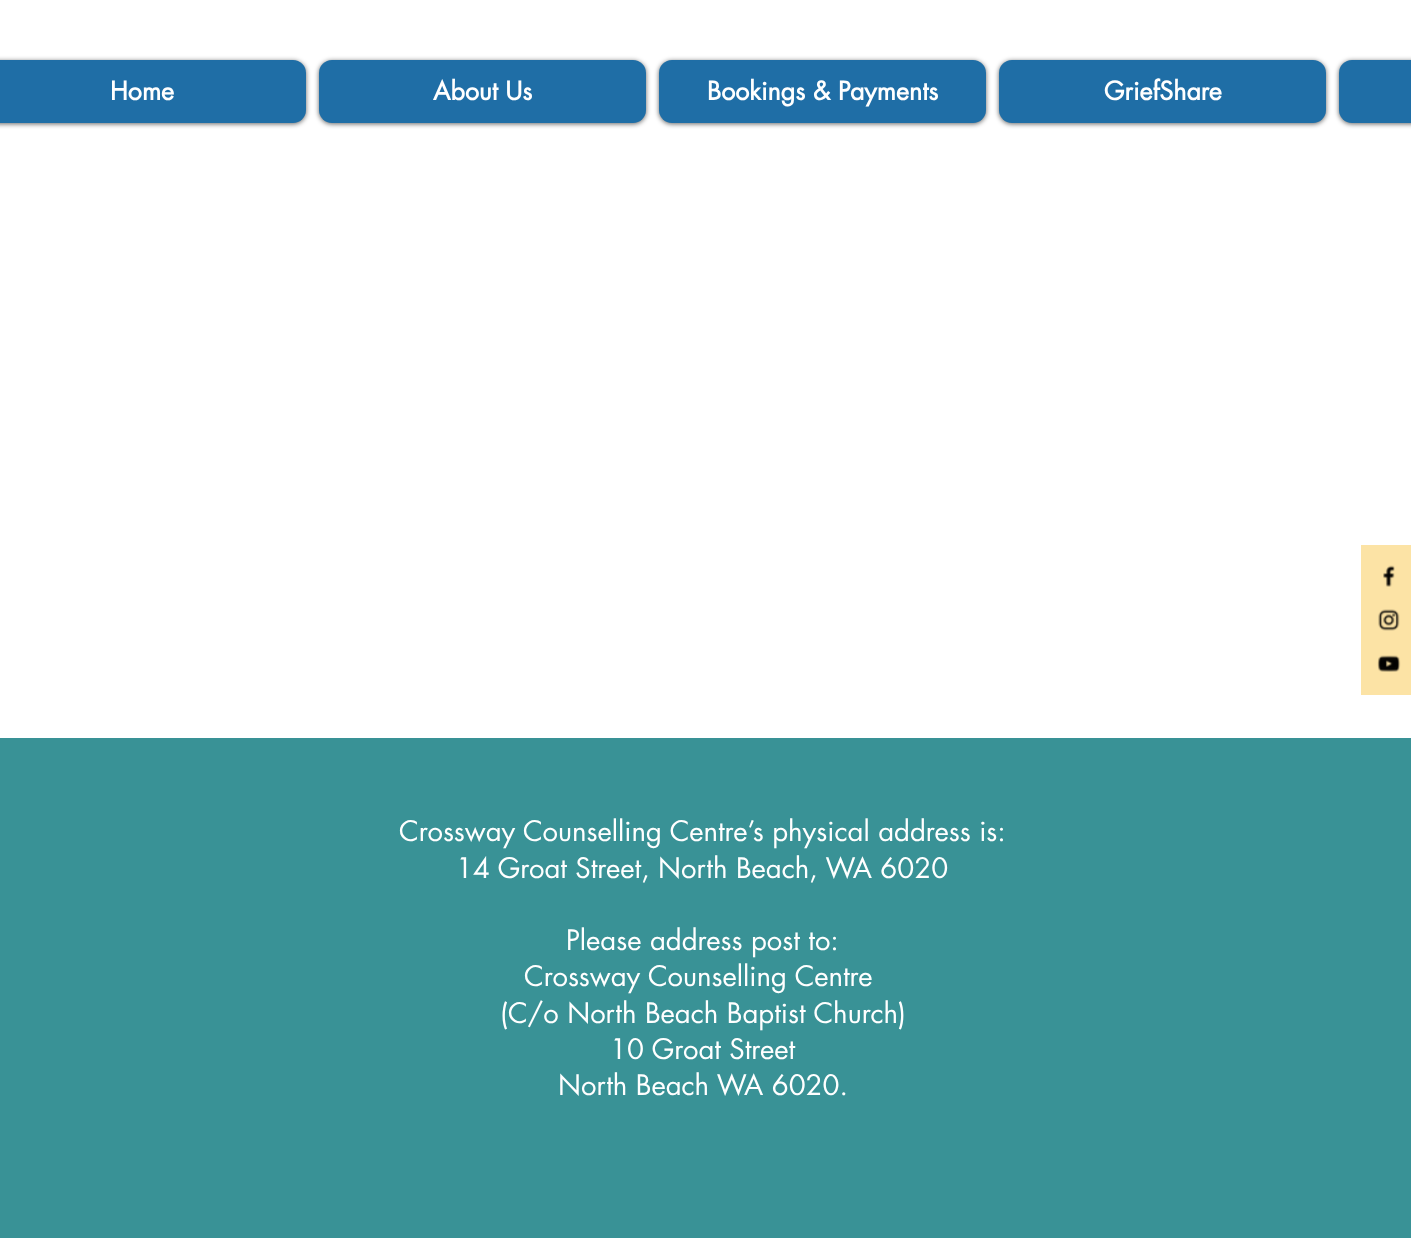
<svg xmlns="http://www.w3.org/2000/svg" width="1411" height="1238">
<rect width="100%" height="100%" fill="#fff"/>
<rect x="-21" y="61" width="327" height="63" rx="13" fill="#00000099" filter="blur(2.5px)"/>
<rect x="-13" y="60" width="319" height="63" rx="13" fill="#1f6ea6"/>
<text x="110" y="100" style="font-family:futura;font-size:25px;font-weight:bold;fill:#fff">Home</text>
<rect x="319" y="61" width="327" height="63" rx="13" fill="#00000099" filter="blur(2.5px)"/>
<rect x="319" y="60" width="327" height="63" rx="13" fill="#1f6ea6"/>
<text x="433" y="100" style="font-family:futura;font-size:25px;font-weight:bold;fill:#fff">About Us</text>
<rect x="659" y="61" width="327" height="63" rx="13" fill="#00000099" filter="blur(2.5px)"/>
<rect x="659" y="60" width="327" height="63" rx="13" fill="#1f6ea6"/>
<text x="707" y="100" style="font-family:futura;font-size:25px;font-weight:bold;fill:#fff">Bookings &amp; Payments</text>
<rect x="999" y="61" width="327" height="63" rx="13" fill="#00000099" filter="blur(2.5px)"/>
<rect x="999" y="60" width="327" height="63" rx="13" fill="#1f6ea6"/>
<text x="1104" y="100" style="font-family:futura;font-size:25px;font-weight:bold;fill:#fff">GriefShare</text>
<rect x="1339" y="61" width="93" height="63" rx="13" fill="#00000099" filter="blur(2.5px)"/>
<rect x="1339" y="60" width="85" height="63" rx="13" fill="#1f6ea6"/>
<rect x="1361" y="545" width="50" height="150" fill="#fce3a5"/>
<image x="1383" y="565" width="12" height="22" href="media/1.png"/>
<image x="1378" y="609" width="22" height="22" href="media/2.png"/>
<image x="1377" y="655" width="24" height="17" href="media/3.png"/>
<rect y="738" width="1411" height="500" fill="#399296"/>
<text x="399" y="841" style="font-family:futura;font-size:27.5px;fill:#fff">Crossway Counselling Centre’s physical address is:</text>
<text x="456" y="878" style="font-family:futura;font-size:27.5px;fill:#fff">14 Groat Street, North Beach, WA 6020</text>
<text x="566" y="950" style="font-family:futura;font-size:27.5px;fill:#fff">Please address post to:</text>
<text x="524" y="986" style="font-family:futura;font-size:27.5px;fill:#fff">Crossway Counselling Centre</text>
<text x="500" y="1023" style="font-family:futura;font-size:27.5px;fill:#fff">(C/o North Beach Baptist Church)</text>
<text x="610" y="1059" style="font-family:futura;font-size:27.5px;fill:#fff">10 Groat Street</text>
<text x="558" y="1095" style="font-family:futura;font-size:27.5px;fill:#fff">North Beach WA 6020.</text>
</svg>
